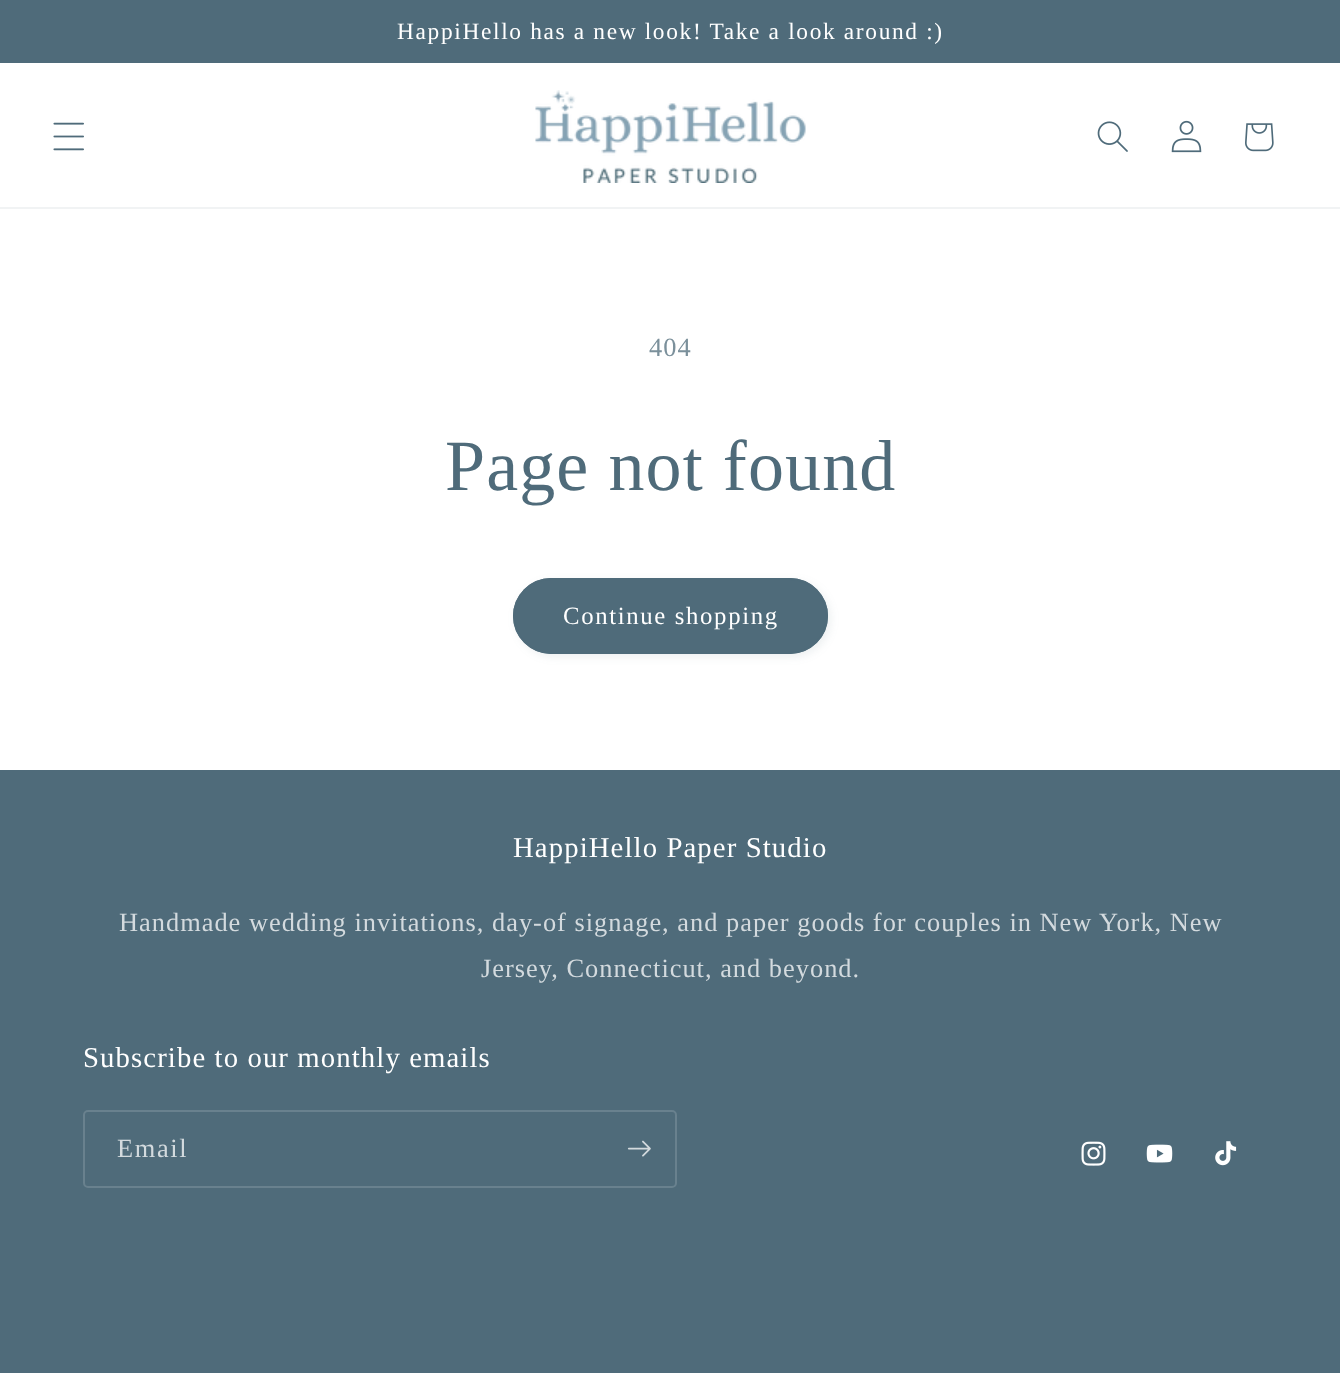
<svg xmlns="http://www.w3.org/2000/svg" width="1340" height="1373">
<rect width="100%" height="100%" fill="#fff"/>
<rect width="1340" height="63" fill="#4f6b7a"/>
<text x="397" y="39" style="font-family:Liberation Serif;font-size:23.4px;letter-spacing:1.65px;fill:#fff">HappiHello has a new look! Take a look around :)</text>
<rect y="207" width="1340" height="2" fill="#f1f3f4"/>
<image x="53" y="122" width="31" height="29" href="media/1.png"/>
<image x="535" y="90" width="271" height="93" href="media/2.png"/>
<image x="1097" y="121" width="31" height="31" href="media/3.png"/>
<image x="1171" y="120" width="31" height="33" href="media/4.png"/>
<image x="1245" y="123" width="29" height="29" href="media/5.png"/>
<text x="649" y="356" style="font-family:Liberation Serif;font-size:26.4px;letter-spacing:1px;fill:#7b909b">404</text>
<text x="445" y="490" style="font-family:Liberation Serif;font-size:72px;letter-spacing:1.1px;fill:#4f6b7a">Page not found</text>
<rect x="516" y="581" width="315" height="76" rx="38" fill="#4f6b7a1a" filter="blur(4px)"/>
<rect x="513" y="578" width="315" height="76" rx="38" fill="#4f6b7a"/>
<rect x="514" y="579" width="313" height="74" rx="37" fill="none" stroke="#4f6b7a" stroke-width="2"/>
<text x="563" y="624" style="font-family:Liberation Serif;font-size:24.75px;letter-spacing:1.65px;fill:#fff">Continue shopping</text>
<rect y="770" width="1340" height="603" fill="#4f6b7a"/>
<text x="513" y="857" style="font-family:Liberation Serif;font-size:28.75px;letter-spacing:1.1px;fill:#fff">HappiHello Paper Studio</text>
<text x="119" y="931" style="font-family:Liberation Serif;font-size:26.4px;letter-spacing:1px;fill:#d3dade">Handmade wedding invitations, day-of signage, and paper goods for couples in New York, New</text>
<text x="481" y="977" style="font-family:Liberation Serif;font-size:26.4px;letter-spacing:1px;fill:#d3dade">Jersey, Connecticut, and beyond.</text>
<text x="83" y="1067" style="font-family:Liberation Serif;font-size:28.75px;letter-spacing:1.1px;fill:#fff">Subscribe to our monthly emails</text>
<rect x="84" y="1111" width="592" height="76" rx="4" fill="none" stroke="#69818e" stroke-width="2"/>
<text x="117" y="1157" style="font-family:Liberation Serif;font-size:26.4px;letter-spacing:1.65px;fill:#d3dade">Email</text>
<image x="627" y="1140" width="24" height="17" href="media/6.png"/>
<image x="1081" y="1141" width="25" height="25" href="media/7.png"/>
<image x="1146" y="1144" width="27" height="19" href="media/8.png"/>
<image x="1215" y="1141" width="22" height="25" href="media/9.png"/>
</svg>
